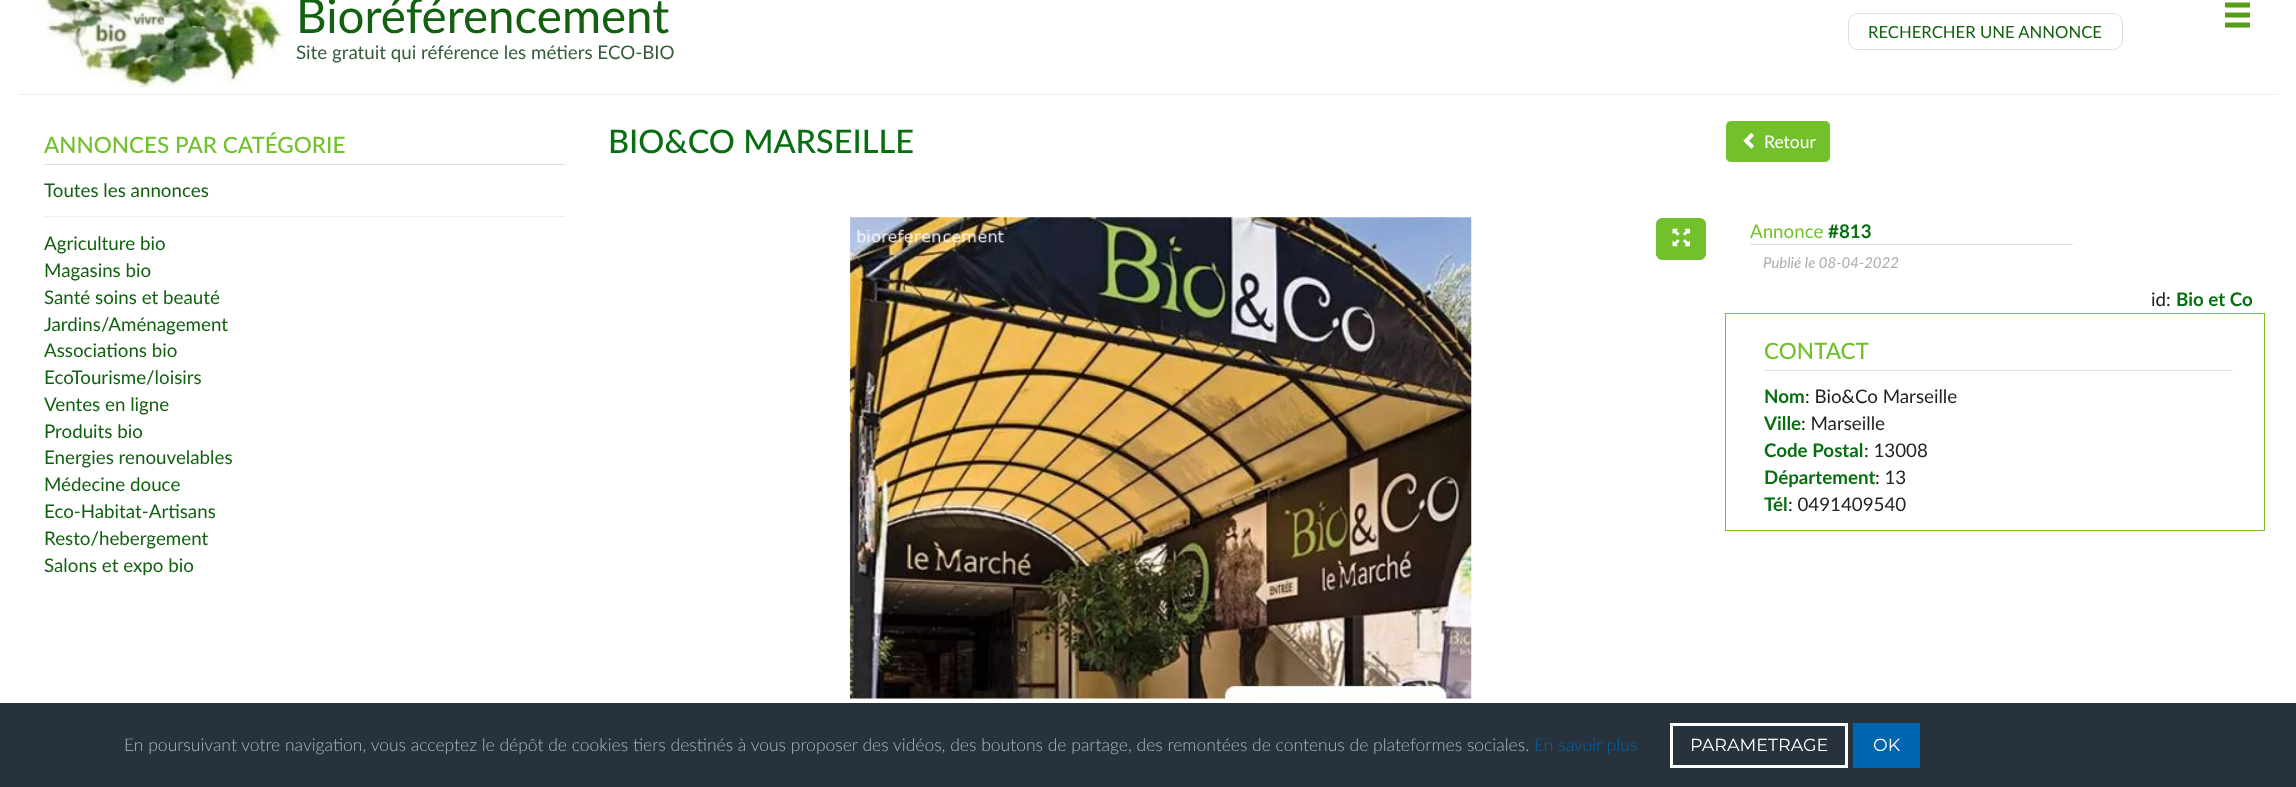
<svg xmlns="http://www.w3.org/2000/svg" width="2296" height="787">
<rect width="100%" height="100%" fill="#fff"/>
<image x="38" y="0" width="249" height="88" href="media/1.png"/>
<text x="296" y="33" style="font-family:Lato;font-size:47.5px;fill:#126010">Bioréférencement</text>
<text x="296" y="59" style="font-family:Lato;font-size:18.75px;fill:#345b39">Site gratuit qui référence les métiers ECO-BIO</text>
<image x="2225" y="2" width="25" height="26" href="media/2.png"/>
<rect x="1848.5" y="13.5" width="274" height="36" rx="9.5" fill="none" stroke="#ddd"/>
<text x="1868" y="38" style="font-family:Lato;font-size:16.7px;fill:#126010">RECHERCHER UNE ANNONCE</text>
<rect x="19" y="94" width="2259" height="1" fill="#eee"/>
<rect x="44" y="164" width="521" height="1" fill="#e0e0e0"/>
<text x="44" y="153" style="font-family:Lato;font-size:22.5px;font-weight:500;fill:#72c02c">ANNONCES PAR CATÉGORIE</text>
<text x="44" y="197" style="font-family:Lato;font-size:18.75px;fill:#126010">Toutes les annonces</text>
<rect x="44" y="216" width="521" height="1" fill="#eee"/>
<text x="44" y="250" style="font-family:Lato;font-size:18.75px;fill:#126010">Agriculture bio</text>
<text x="44" y="277" style="font-family:Lato;font-size:18.75px;fill:#126010">Magasins bio</text>
<text x="44" y="304" style="font-family:Lato;font-size:18.75px;fill:#126010">Santé soins et beauté</text>
<text x="44" y="331" style="font-family:Lato;font-size:18.75px;fill:#126010">Jardins/Aménagement</text>
<text x="44" y="357" style="font-family:Lato;font-size:18.75px;fill:#126010">Associations bio</text>
<text x="44" y="384" style="font-family:Lato;font-size:18.75px;fill:#126010">EcoTourisme/loisirs</text>
<text x="44" y="411" style="font-family:Lato;font-size:18.75px;fill:#126010">Ventes en ligne</text>
<text x="44" y="438" style="font-family:Lato;font-size:18.75px;fill:#126010">Produits bio</text>
<text x="44" y="464" style="font-family:Lato;font-size:18.75px;fill:#126010">Energies renouvelables</text>
<text x="44" y="491" style="font-family:Lato;font-size:18.75px;fill:#126010">Médecine douce</text>
<text x="44" y="518" style="font-family:Lato;font-size:18.75px;fill:#126010">Eco-Habitat-Artisans</text>
<text x="44" y="545" style="font-family:Lato;font-size:18.75px;fill:#126010">Resto/hebergement</text>
<text x="44" y="572" style="font-family:Lato;font-size:18.75px;fill:#126010">Salons et expo bio</text>
<text x="608" y="153" style="font-family:Lato;font-size:32.5px;font-weight:500;fill:#086e12">BIO&amp;CO MARSEILLE</text>
<rect x="1725.5" y="120.5" width="105" height="42" rx="5.5" fill="#72c02c" stroke="#fff"/>
<image x="1743" y="132" width="12" height="17" href="media/3.png"/>
<text x="1764" y="148" style="font-family:Lato;font-size:17.5px;fill:#fff">Retour</text>
<image x="849" y="217" width="623" height="482" href="media/4.png"/>
<rect x="1656.5" y="218.5" width="49" height="41" rx="5.5" fill="#72c02c" stroke="#72c02c"/>
<image x="1672" y="228" width="18" height="19" href="media/5.png"/>
<text x="1750" y="238" style="font-family:Lato;font-size:18.75px;fill:#72c02c">Annonce</text>
<text x="1828" y="238" style="font-family:Lato;font-size:18.75px;font-weight:bold;fill:#086e12">#813</text>
<rect x="1750" y="244" width="323" height="1" fill="#e0e0e0"/>
<text x="1763" y="268" style="font-family:Lato;font-size:15px;font-style:italic;fill:#adadad">Publié le 08-04-2022</text>
<text x="2151" y="306" style="font-family:Lato;font-size:18.75px;fill:#222">id:</text>
<text x="2176" y="306" style="font-family:Lato;font-size:18.75px;font-weight:bold;fill:#086e12">Bio et Co</text>
<rect x="1725.5" y="313.5" width="539" height="217" fill="none" stroke="#72c02c"/>
<rect x="1764" y="370" width="469" height="1" fill="#e0e0e0"/>
<text x="1764" y="359" style="font-family:Lato;font-size:22.5px;font-weight:500;fill:#72c02c">CONTACT</text>
<text x="1764" y="403" style="font-family:Lato;font-size:18.75px;font-weight:bold;fill:#086e12">Nom</text>
<text x="1805" y="403" style="font-family:Lato;font-size:18.75px;fill:#222">: Bio&amp;Co Marseille</text>
<text x="1764" y="430" style="font-family:Lato;font-size:18.75px;font-weight:bold;fill:#086e12">Ville</text>
<text x="1801" y="430" style="font-family:Lato;font-size:18.75px;fill:#222">: Marseille</text>
<text x="1764" y="457" style="font-family:Lato;font-size:18.75px;font-weight:bold;fill:#086e12">Code Postal</text>
<text x="1864" y="457" style="font-family:Lato;font-size:18.75px;fill:#222">: 13008</text>
<text x="1764" y="484" style="font-family:Lato;font-size:18.75px;font-weight:bold;fill:#086e12">Département</text>
<text x="1875" y="484" style="font-family:Lato;font-size:18.75px;fill:#222">: 13</text>
<text x="1764" y="511" style="font-family:Lato;font-size:18.75px;font-weight:bold;fill:#086e12">Tél</text>
<text x="1788" y="511" style="font-family:Lato;font-size:18.75px;fill:#222">: 0491409540</text>
<rect y="703" width="2296" height="84" fill="#27323d"/>
<text x="124" y="751" style="font-family:Lato;font-size:17.5px;font-weight:300;fill:#acb8c1">En poursuivant votre navigation, vous acceptez le dépôt de cookies tiers destinés à vous proposer des vidéos, des boutons de partage, des remontées de contenus de plateformes sociales.</text>
<text x="1534" y="751" style="font-family:Lato;font-size:17.5px;font-weight:300;fill:#0065af">En savoir plus</text>
<rect x="1671.5" y="724.5" width="175" height="42" fill="none" stroke="#fff" stroke-width="3"/>
<text x="1690" y="751" style="font-family:Montserrat;font-size:17.5px;fill:#fff">PARAMETRAGE</text>
<rect x="1853" y="723" width="67" height="45" fill="#0065af"/>
<text x="1873" y="751" style="font-family:Montserrat;font-size:17.5px;fill:#fff">OK</text>
</svg>
